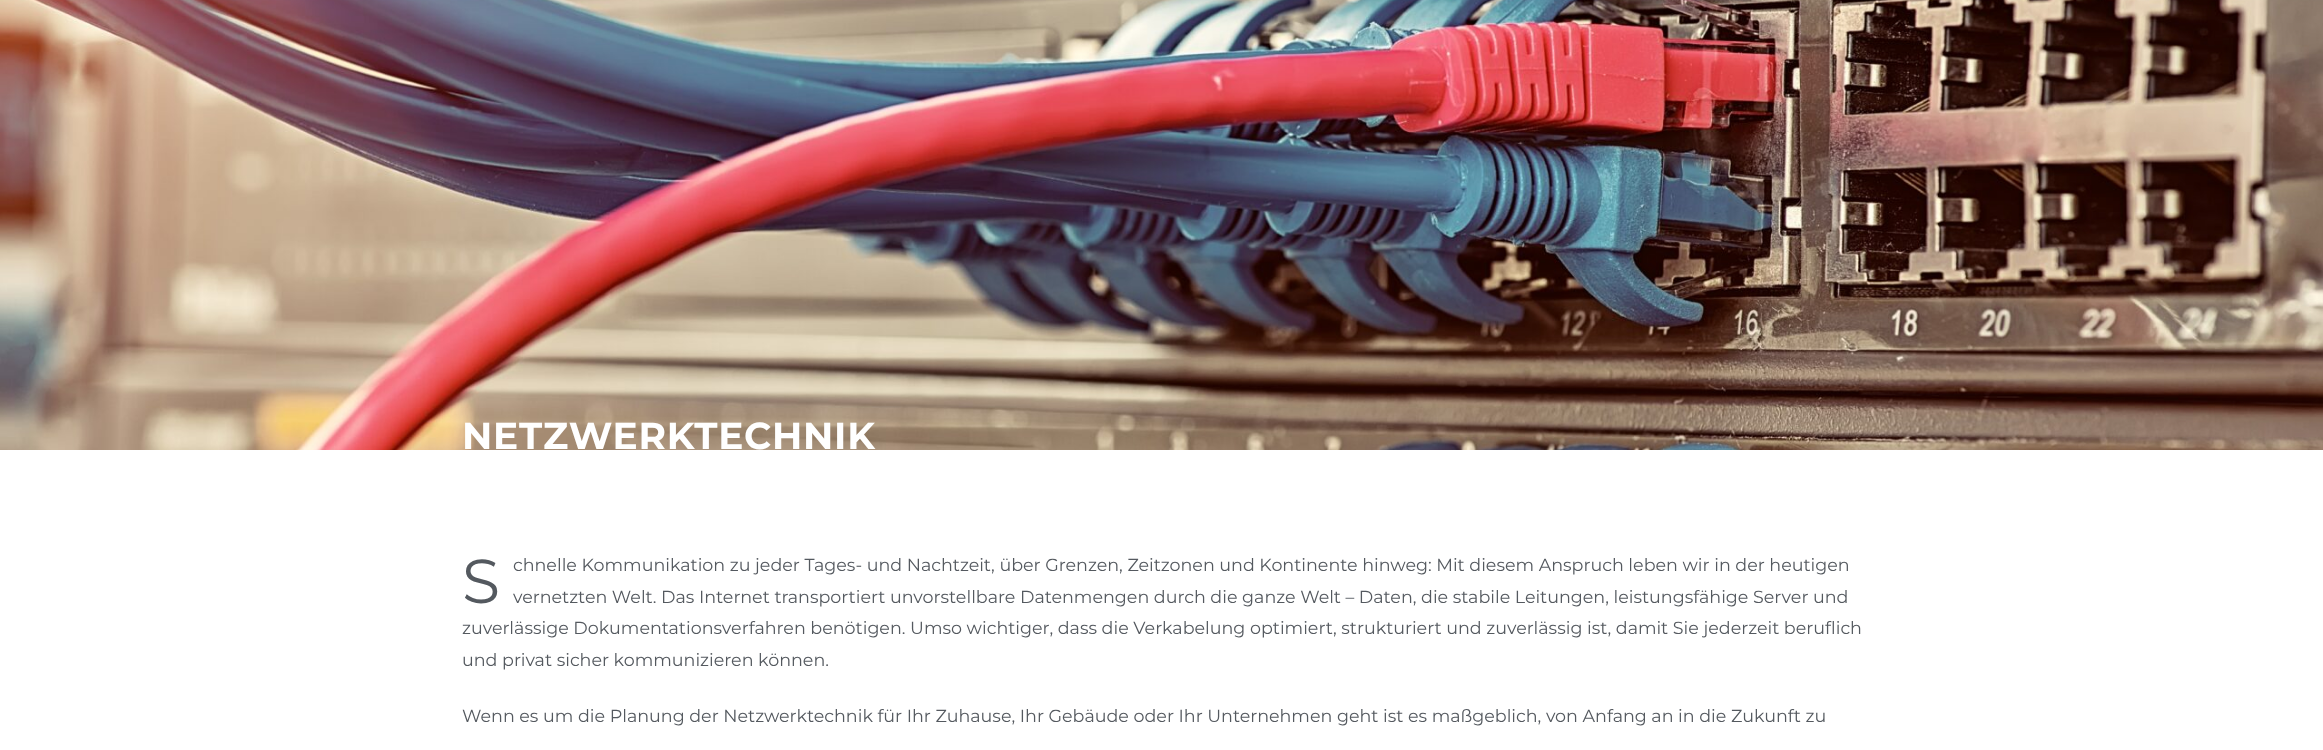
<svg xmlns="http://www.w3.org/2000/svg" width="2323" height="750">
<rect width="100%" height="100%" fill="#fff"/>
<image x="0" y="0" width="2323" height="450" href="media/1.png"/>
<text x="462" y="449" style="font-family:Montserrat;font-size:37.5px;font-weight:bold;letter-spacing:0.75px;fill:#fff">NETZWERKTECHNIK</text>
<text x="462" y="603" style="font-family:Montserrat;font-size:62px;fill:#54595f">S</text>
<text x="513" y="571" style="font-family:Montserrat;font-size:17.5px;fill:#54595f">chnelle Kommunikation zu jeder Tages- und Nachtzeit, über Grenzen, Zeitzonen und Kontinente hinweg: Mit diesem Anspruch leben wir in der heutigen</text>
<text x="513" y="603" style="font-family:Montserrat;font-size:17.5px;fill:#54595f">vernetzten Welt. Das Internet transportiert unvorstellbare Datenmengen durch die ganze Welt – Daten, die stabile Leitungen, leistungsfähige Server und</text>
<text x="462" y="634" style="font-family:Montserrat;font-size:17.5px;fill:#54595f">zuverlässige Dokumentationsverfahren benötigen. Umso wichtiger, dass die Verkabelung optimiert, strukturiert und zuverlässig ist, damit Sie jederzeit beruflich</text>
<text x="462" y="666" style="font-family:Montserrat;font-size:17.5px;fill:#54595f">und privat sicher kommunizieren können.</text>
<text x="462" y="722" style="font-family:Montserrat;font-size:17.5px;fill:#54595f">Wenn es um die Planung der Netzwerktechnik für Ihr Zuhause, Ihr Gebäude oder Ihr Unternehmen geht ist es maßgeblich, von Anfang an in die Zukunft zu</text>
</svg>
